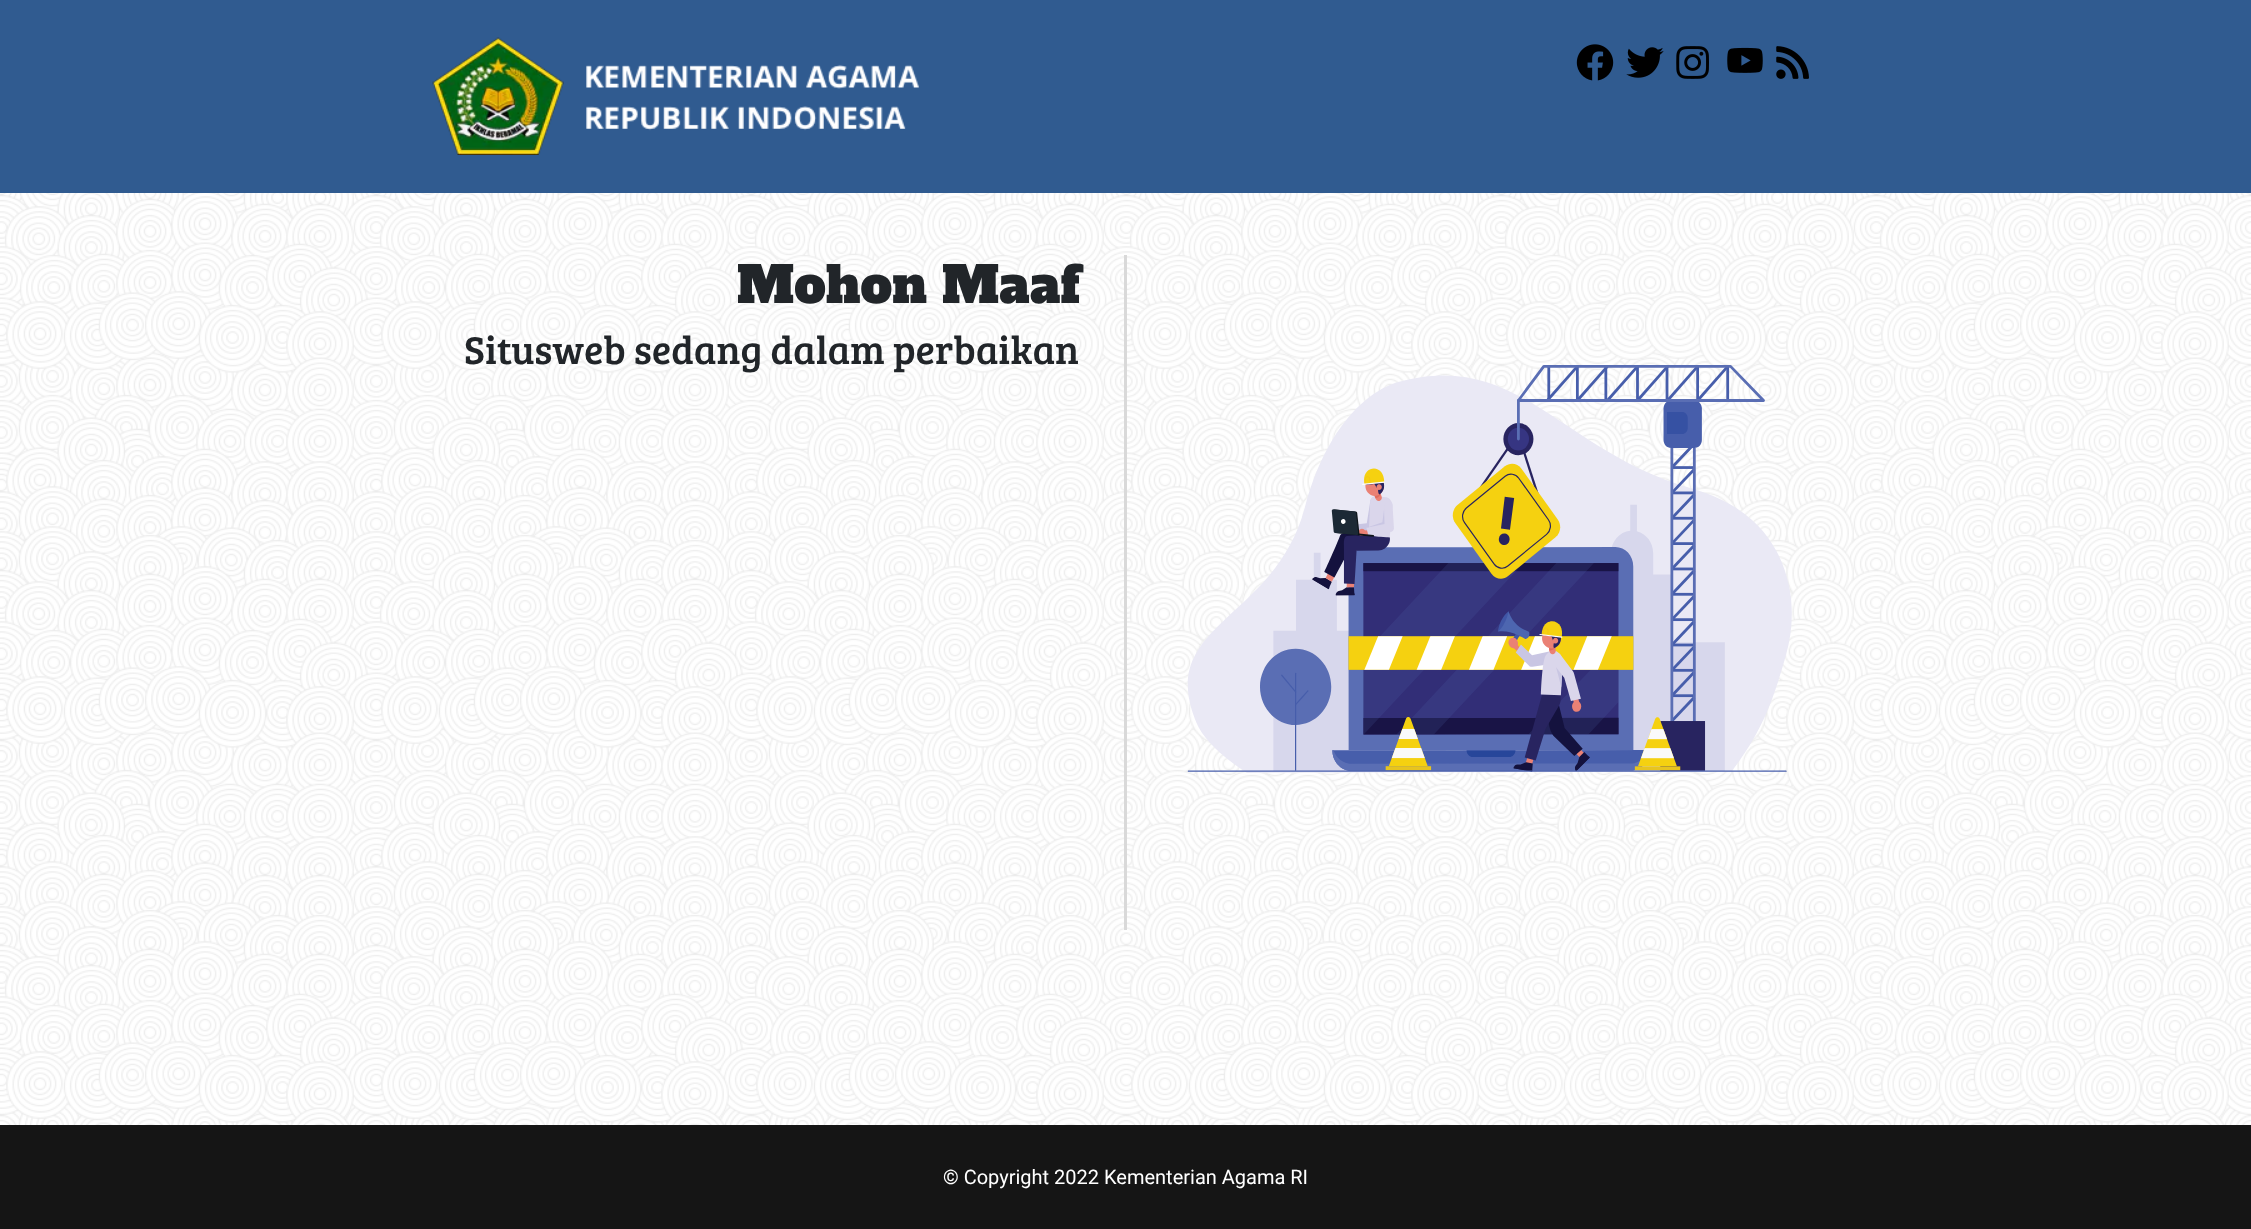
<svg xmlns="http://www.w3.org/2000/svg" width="2251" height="1229">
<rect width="100%" height="100%" fill="#fff"/>
<image x="0" y="193" width="2251" height="932" href="media/1.png"/>
<rect width="2251" height="193" fill="#305b90"/>
<image x="432" y="37" width="487" height="118" href="media/2.png"/>
<image x="1576" y="44" width="38" height="37" href="media/3.png"/>
<image x="1626" y="47" width="38" height="31" href="media/4.png"/>
<image x="1676" y="46" width="33" height="33" href="media/5.png"/>
<image x="1727" y="47" width="36" height="26" href="media/6.png"/>
<image x="1776" y="46" width="33" height="33" href="media/7.png"/>
<rect x="1124" y="255" width="3" height="675" fill="#d9d9d9"/>
<text x="737" y="303" style="font-family:Alfa Slab One;font-size:50px;fill:#212529">Mohon Maaf</text>
<text x="464" y="364" style="font-family:Bree Serif;font-size:40px;fill:#212529">Situsweb sedang dalam perbaikan</text>
<image x="1187" y="365" width="605" height="408" href="media/8.png"/>
<rect y="1125" width="2251" height="104" fill="#151515"/>
<text x="943" y="1184" style="font-family:Roboto;font-size:20px;fill:#fff">© Copyright 2022 Kementerian Agama RI</text>
</svg>
